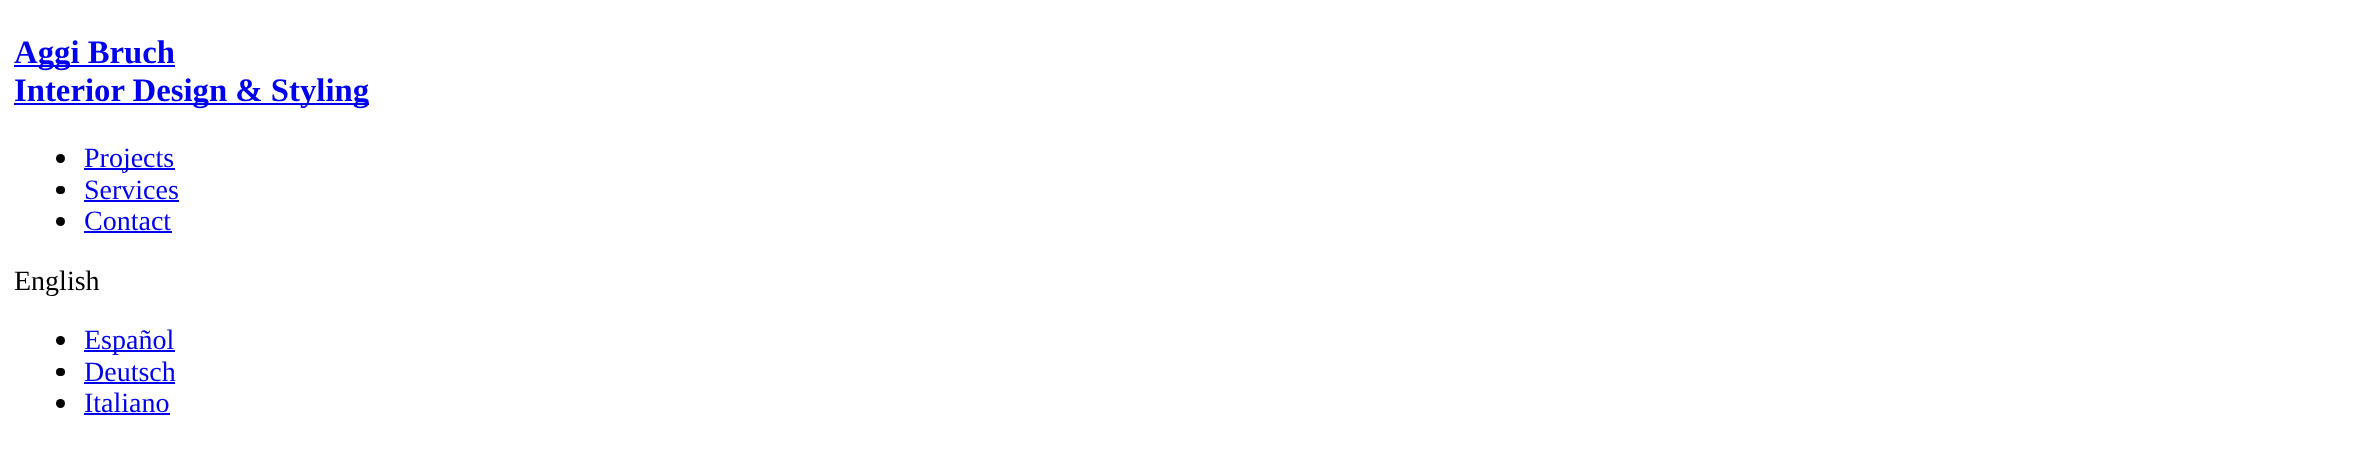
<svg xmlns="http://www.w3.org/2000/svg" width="2365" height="470">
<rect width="100%" height="100%" fill="#fff"/>
<rect x="14" y="65" width="161" height="2" fill="#00e"/>
<text x="14" y="63" style="font-family:Liberation Serif;font-size:32.75px;font-weight:bold;fill:#00e">Aggi Bruch</text>
<rect x="14" y="103" width="355" height="2" fill="#00e"/>
<text x="14" y="101" style="font-family:Liberation Serif;font-size:32.75px;font-weight:bold;fill:#00e">Interior Design &amp; Styling</text>
<circle cx="60.5" cy="158.5" r="4.5" fill="#000"/>
<rect x="84" y="168" width="91" height="2" fill="#00e"/>
<text x="84" y="167" style="font-family:Liberation Serif;font-size:28px;fill:#00e">Projects</text>
<rect x="56" y="186" width="9" height="8" rx="4" fill="#000"/>
<text x="84" y="199" style="font-family:Liberation Serif;font-size:28px;fill:#00e">Services</text>
<rect x="84" y="200" width="95" height="2" fill="#00e"/>
<circle cx="60.5" cy="221.5" r="4.5" fill="#000"/>
<text x="84" y="230" style="font-family:Liberation Serif;font-size:28px;fill:#00e">Contact</text>
<rect x="84" y="231" width="88" height="2" fill="#00e"/>
<text x="14" y="290" style="font-family:Liberation Serif;font-size:28px;fill:#000">English</text>
<circle cx="60.5" cy="340.5" r="4.5" fill="#000"/>
<rect x="84" y="350" width="91" height="2" fill="#00e"/>
<text x="84" y="349" style="font-family:Liberation Serif;font-size:28px;fill:#00e">Español</text>
<rect x="56" y="368" width="9" height="8" rx="4" fill="#000"/>
<text x="84" y="381" style="font-family:Liberation Serif;font-size:28px;fill:#00e">Deutsch</text>
<rect x="84" y="382" width="91" height="2" fill="#00e"/>
<circle cx="60.5" cy="403.5" r="4.5" fill="#000"/>
<text x="84" y="412" style="font-family:Liberation Serif;font-size:28px;fill:#00e">Italiano</text>
<rect x="84" y="413" width="86" height="2" fill="#00e"/>
</svg>
